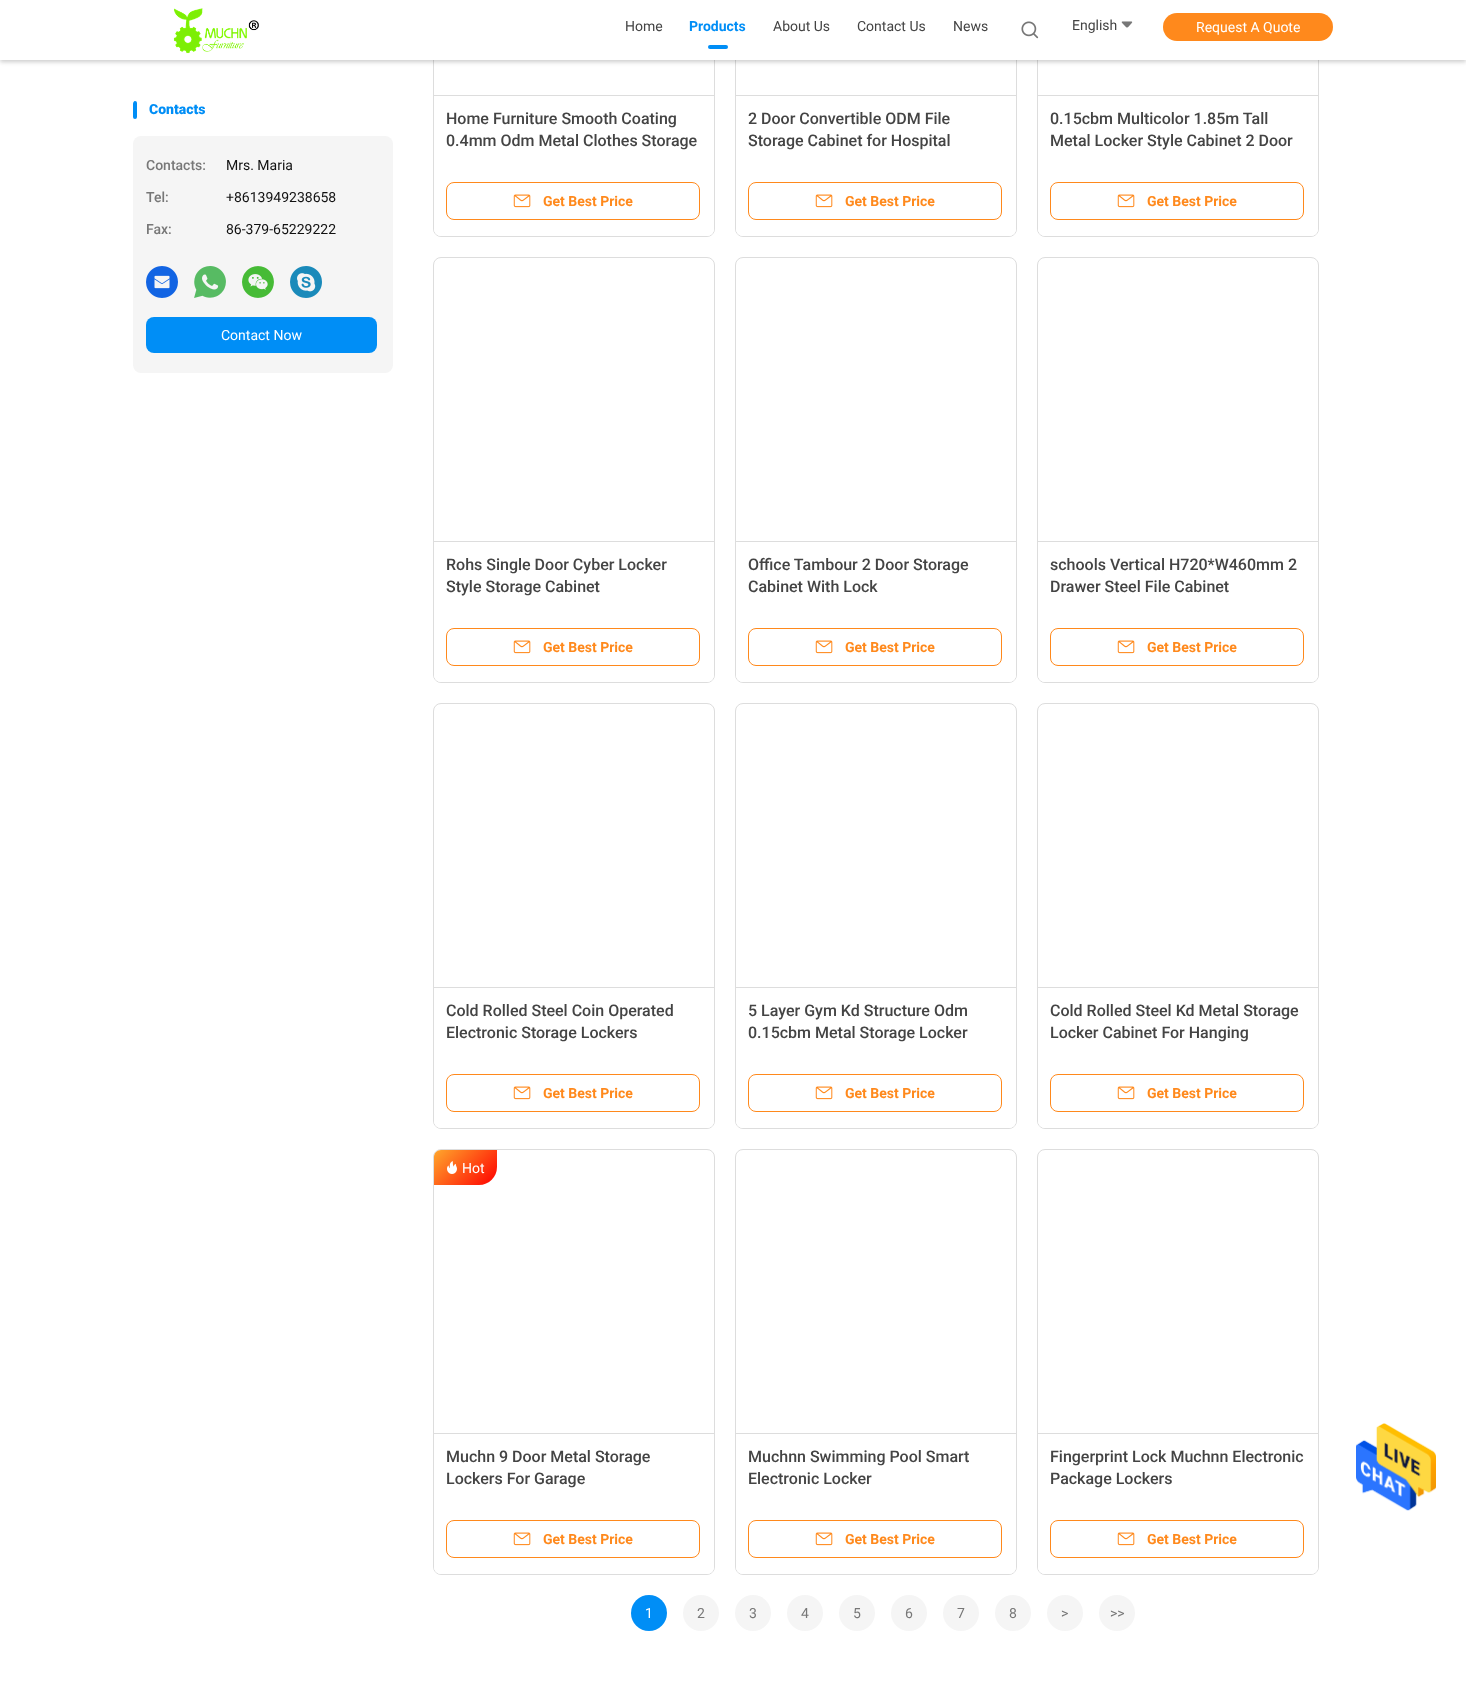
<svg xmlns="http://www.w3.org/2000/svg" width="1466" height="1687">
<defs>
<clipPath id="clip1"><rect x="133" y="100" width="260" height="273" rx="4"/></clipPath>
<linearGradient id="g1" gradientUnits="userSpaceOnUse" x1="441" y1="1143" x2="490" y2="1192"><stop offset="0" stop-color="#ffa72c"/><stop offset="1" stop-color="#f00"/></linearGradient>
</defs>
<rect width="100%" height="100%" fill="#fff"/>
<rect x="433.5" y="-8.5" width="281" height="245" rx="7.5" fill="none" stroke="#ddd"/>
<rect x="735.5" y="-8.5" width="281" height="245" rx="7.5" fill="none" stroke="#ddd"/>
<rect x="1037.5" y="-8.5" width="281" height="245" rx="7.5" fill="none" stroke="#ddd"/>
<rect y="2" width="1466" height="60" fill="#00000033" filter="blur(2px)"/>
<rect width="1466" height="60" fill="#fff"/>
<image x="173" y="8" width="86" height="46" href="media/1.png"/>
<text x="625" y="31" style="font-family:Roboto;font-size:14px;fill:#444">Home</text>
<text x="689" y="31" style="font-family:Roboto;font-size:14px;font-weight:bold;fill:#008ef6">Products</text>
<rect x="708" y="45" width="20" height="4" rx="2" fill="#008ef6"/>
<text x="773" y="31" style="font-family:Roboto;font-size:14px;fill:#444">About Us</text>
<text x="857" y="31" style="font-family:Roboto;font-size:14px;fill:#444">Contact Us</text>
<text x="953" y="31" style="font-family:Roboto;font-size:14px;fill:#444">News</text>
<image x="1021" y="21" width="18" height="18" href="media/2.png"/>
<text x="1072" y="30" style="font-family:Roboto;font-size:14px;fill:#444">English</text>
<image x="1121" y="21" width="12" height="7" href="media/3.png"/>
<rect x="1163" y="13" width="170" height="28" rx="14" fill="#ff891c"/>
<text x="1196" y="32" style="font-family:Roboto;font-size:14px;fill:#fff">Request A Quote</text>
<g clip-path="url(#clip1)">
<rect x="133" y="101" width="4" height="18" rx="2" fill="#008ef6"/>
</g>
<text x="149" y="114" style="font-family:Roboto;font-size:14px;font-weight:900;fill:#008ef6">Contacts</text>
<rect x="133" y="136" width="260" height="237" rx="8" fill="#f5f5f5"/>
<text x="146" y="170" style="font-family:Roboto;font-size:14px;font-weight:500;fill:#777">Contacts:</text>
<text x="226" y="170" style="font-family:Roboto;font-size:14px;fill:#111">Mrs. Maria</text>
<text x="146" y="202" style="font-family:Roboto;font-size:14px;font-weight:500;fill:#777">Tel:</text>
<text x="226" y="202" style="font-family:Roboto;font-size:14px;fill:#111">+8613949238658</text>
<text x="146" y="234" style="font-family:Roboto;font-size:14px;font-weight:500;fill:#777">Fax:</text>
<text x="226" y="234" style="font-family:Roboto;font-size:14px;fill:#111">86-379-65229222</text>
<image x="146" y="266" width="32" height="32" href="media/4.png"/>
<image x="194" y="266" width="32" height="32" href="media/5.png"/>
<image x="242" y="266" width="32" height="32" href="media/6.png"/>
<image x="290" y="266" width="32" height="32" href="media/7.png"/>
<rect x="146" y="317" width="231" height="36" rx="8" fill="#008ef6"/>
<text x="221" y="340" style="font-family:Roboto;font-size:14px;fill:#fff">Contact Now</text>
<path d="M434 95h280v134c0 4-3 7-7 7h-266c-4 0-7-3-7-7z" fill="#fff"/>
<rect x="434" y="95" width="280" height="1" fill="#ddd"/>
<text x="446" y="124" style="font-family:Roboto;font-size:16px;font-weight:500;fill:#444">Home Furniture Smooth Coating</text>
<text x="446" y="146" style="font-family:Roboto;font-size:16px;font-weight:500;fill:#444">0.4mm Odm Metal Clothes Storage</text>
<rect x="446.5" y="182.5" width="253" height="37" rx="7.5" fill="none" stroke="#ff891c"/>
<image x="513" y="194" width="18" height="14" href="media/8.png"/>
<text x="543" y="206" style="font-family:Roboto;font-size:14px;font-weight:bold;fill:#ff891c">Get Best Price</text>
<path d="M736 95h280v134c0 4-3 7-7 7h-266c-4 0-7-3-7-7z" fill="#fff"/>
<rect x="736" y="95" width="280" height="1" fill="#ddd"/>
<text x="748" y="124" style="font-family:Roboto;font-size:16px;font-weight:500;fill:#444">2 Door Convertible ODM File</text>
<text x="748" y="146" style="font-family:Roboto;font-size:16px;font-weight:500;fill:#444">Storage Cabinet for Hospital</text>
<rect x="748.5" y="182.5" width="253" height="37" rx="7.5" fill="none" stroke="#ff891c"/>
<image x="815" y="194" width="18" height="14" href="media/8.png"/>
<text x="845" y="206" style="font-family:Roboto;font-size:14px;font-weight:bold;fill:#ff891c">Get Best Price</text>
<path d="M1038 95h280v134c0 4-3 7-7 7h-266c-4 0-7-3-7-7z" fill="#fff"/>
<rect x="1038" y="95" width="280" height="1" fill="#ddd"/>
<text x="1050" y="124" style="font-family:Roboto;font-size:16px;font-weight:500;fill:#444">0.15cbm Multicolor 1.85m Tall</text>
<text x="1050" y="146" style="font-family:Roboto;font-size:16px;font-weight:500;fill:#444">Metal Locker Style Cabinet 2 Door</text>
<rect x="1050.5" y="182.5" width="253" height="37" rx="7.5" fill="none" stroke="#ff891c"/>
<image x="1117" y="194" width="18" height="14" href="media/8.png"/>
<text x="1147" y="206" style="font-family:Roboto;font-size:14px;font-weight:bold;fill:#ff891c">Get Best Price</text>
<rect x="433.5" y="257.5" width="281" height="425" rx="7.5" fill="none" stroke="#ddd"/>
<path d="M434 541h280v134c0 4-3 7-7 7h-266c-4 0-7-3-7-7z" fill="#fff"/>
<rect x="434" y="541" width="280" height="1" fill="#ddd"/>
<text x="446" y="570" style="font-family:Roboto;font-size:16px;font-weight:500;fill:#444">Rohs Single Door Cyber Locker</text>
<text x="446" y="592" style="font-family:Roboto;font-size:16px;font-weight:500;fill:#444">Style Storage Cabinet</text>
<rect x="446.5" y="628.5" width="253" height="37" rx="7.5" fill="none" stroke="#ff891c"/>
<image x="513" y="640" width="18" height="14" href="media/8.png"/>
<text x="543" y="652" style="font-family:Roboto;font-size:14px;font-weight:bold;fill:#ff891c">Get Best Price</text>
<rect x="735.5" y="257.5" width="281" height="425" rx="7.5" fill="none" stroke="#ddd"/>
<path d="M736 541h280v134c0 4-3 7-7 7h-266c-4 0-7-3-7-7z" fill="#fff"/>
<rect x="736" y="541" width="280" height="1" fill="#ddd"/>
<text x="748" y="570" style="font-family:Roboto;font-size:16px;font-weight:500;fill:#444">Office Tambour 2 Door Storage</text>
<text x="748" y="592" style="font-family:Roboto;font-size:16px;font-weight:500;fill:#444">Cabinet With Lock</text>
<rect x="748.5" y="628.5" width="253" height="37" rx="7.5" fill="none" stroke="#ff891c"/>
<image x="815" y="640" width="18" height="14" href="media/8.png"/>
<text x="845" y="652" style="font-family:Roboto;font-size:14px;font-weight:bold;fill:#ff891c">Get Best Price</text>
<rect x="1037.5" y="257.5" width="281" height="425" rx="7.5" fill="none" stroke="#ddd"/>
<path d="M1038 541h280v134c0 4-3 7-7 7h-266c-4 0-7-3-7-7z" fill="#fff"/>
<rect x="1038" y="541" width="280" height="1" fill="#ddd"/>
<text x="1050" y="570" style="font-family:Roboto;font-size:16px;font-weight:500;fill:#444">schools Vertical H720*W460mm 2</text>
<text x="1050" y="592" style="font-family:Roboto;font-size:16px;font-weight:500;fill:#444">Drawer Steel File Cabinet</text>
<rect x="1050.5" y="628.5" width="253" height="37" rx="7.5" fill="none" stroke="#ff891c"/>
<image x="1117" y="640" width="18" height="14" href="media/8.png"/>
<text x="1147" y="652" style="font-family:Roboto;font-size:14px;font-weight:bold;fill:#ff891c">Get Best Price</text>
<rect x="433.5" y="703.5" width="281" height="425" rx="7.5" fill="none" stroke="#ddd"/>
<path d="M434 987h280v134c0 4-3 7-7 7h-266c-4 0-7-3-7-7z" fill="#fff"/>
<rect x="434" y="987" width="280" height="1" fill="#ddd"/>
<text x="446" y="1016" style="font-family:Roboto;font-size:16px;font-weight:500;fill:#444">Cold Rolled Steel Coin Operated</text>
<text x="446" y="1038" style="font-family:Roboto;font-size:16px;font-weight:500;fill:#444">Electronic Storage Lockers</text>
<rect x="446.5" y="1074.5" width="253" height="37" rx="7.5" fill="none" stroke="#ff891c"/>
<image x="513" y="1086" width="18" height="14" href="media/8.png"/>
<text x="543" y="1098" style="font-family:Roboto;font-size:14px;font-weight:bold;fill:#ff891c">Get Best Price</text>
<rect x="735.5" y="703.5" width="281" height="425" rx="7.5" fill="none" stroke="#ddd"/>
<path d="M736 987h280v134c0 4-3 7-7 7h-266c-4 0-7-3-7-7z" fill="#fff"/>
<rect x="736" y="987" width="280" height="1" fill="#ddd"/>
<text x="748" y="1016" style="font-family:Roboto;font-size:16px;font-weight:500;fill:#444">5 Layer Gym Kd Structure Odm</text>
<text x="748" y="1038" style="font-family:Roboto;font-size:16px;font-weight:500;fill:#444">0.15cbm Metal Storage Locker</text>
<rect x="748.5" y="1074.5" width="253" height="37" rx="7.5" fill="none" stroke="#ff891c"/>
<image x="815" y="1086" width="18" height="14" href="media/8.png"/>
<text x="845" y="1098" style="font-family:Roboto;font-size:14px;font-weight:bold;fill:#ff891c">Get Best Price</text>
<rect x="1037.5" y="703.5" width="281" height="425" rx="7.5" fill="none" stroke="#ddd"/>
<path d="M1038 987h280v134c0 4-3 7-7 7h-266c-4 0-7-3-7-7z" fill="#fff"/>
<rect x="1038" y="987" width="280" height="1" fill="#ddd"/>
<text x="1050" y="1016" style="font-family:Roboto;font-size:16px;font-weight:500;fill:#444">Cold Rolled Steel Kd Metal Storage</text>
<text x="1050" y="1038" style="font-family:Roboto;font-size:16px;font-weight:500;fill:#444">Locker Cabinet For Hanging</text>
<rect x="1050.5" y="1074.5" width="253" height="37" rx="7.5" fill="none" stroke="#ff891c"/>
<image x="1117" y="1086" width="18" height="14" href="media/8.png"/>
<text x="1147" y="1098" style="font-family:Roboto;font-size:14px;font-weight:bold;fill:#ff891c">Get Best Price</text>
<rect x="433.5" y="1149.5" width="281" height="425" rx="7.5" fill="none" stroke="#ddd"/>
<path d="M441 1150h56v17c0 10-8 18-18 18h-45v-28c0-4 3-7 7-7z" fill="url(#g1)"/>
<image x="447" y="1161" width="10" height="13" href="media/9.png"/>
<text x="462" y="1173" style="font-family:Roboto;font-size:14px;fill:#fff">Hot</text>
<path d="M434 1433h280v134c0 4-3 7-7 7h-266c-4 0-7-3-7-7z" fill="#fff"/>
<rect x="434" y="1433" width="280" height="1" fill="#ddd"/>
<text x="446" y="1462" style="font-family:Roboto;font-size:16px;font-weight:500;fill:#444">Muchn 9 Door Metal Storage</text>
<text x="446" y="1484" style="font-family:Roboto;font-size:16px;font-weight:500;fill:#444">Lockers For Garage</text>
<rect x="446.5" y="1520.5" width="253" height="37" rx="7.5" fill="none" stroke="#ff891c"/>
<image x="513" y="1532" width="18" height="14" href="media/8.png"/>
<text x="543" y="1544" style="font-family:Roboto;font-size:14px;font-weight:bold;fill:#ff891c">Get Best Price</text>
<rect x="735.5" y="1149.5" width="281" height="425" rx="7.5" fill="none" stroke="#ddd"/>
<path d="M736 1433h280v134c0 4-3 7-7 7h-266c-4 0-7-3-7-7z" fill="#fff"/>
<rect x="736" y="1433" width="280" height="1" fill="#ddd"/>
<text x="748" y="1462" style="font-family:Roboto;font-size:16px;font-weight:500;fill:#444">Muchnn Swimming Pool Smart</text>
<text x="748" y="1484" style="font-family:Roboto;font-size:16px;font-weight:500;fill:#444">Electronic Locker</text>
<rect x="748.5" y="1520.5" width="253" height="37" rx="7.5" fill="none" stroke="#ff891c"/>
<image x="815" y="1532" width="18" height="14" href="media/8.png"/>
<text x="845" y="1544" style="font-family:Roboto;font-size:14px;font-weight:bold;fill:#ff891c">Get Best Price</text>
<rect x="1037.5" y="1149.5" width="281" height="425" rx="7.5" fill="none" stroke="#ddd"/>
<path d="M1038 1433h280v134c0 4-3 7-7 7h-266c-4 0-7-3-7-7z" fill="#fff"/>
<rect x="1038" y="1433" width="280" height="1" fill="#ddd"/>
<text x="1050" y="1462" style="font-family:Roboto;font-size:16px;font-weight:500;fill:#444">Fingerprint Lock Muchnn Electronic</text>
<text x="1050" y="1484" style="font-family:Roboto;font-size:16px;font-weight:500;fill:#444">Package Lockers</text>
<rect x="1050.5" y="1520.5" width="253" height="37" rx="7.5" fill="none" stroke="#ff891c"/>
<image x="1117" y="1532" width="18" height="14" href="media/8.png"/>
<text x="1147" y="1544" style="font-family:Roboto;font-size:14px;font-weight:bold;fill:#ff891c">Get Best Price</text>
<circle cx="649" cy="1613" r="18" fill="#008ef6"/>
<text x="645" y="1618" style="font-family:Roboto;font-size:14px;fill:#fff">1</text>
<circle cx="701" cy="1613" r="18" fill="#f5f5f5"/>
<text x="697" y="1618" style="font-family:Roboto;font-size:14px;fill:#777">2</text>
<circle cx="753" cy="1613" r="18" fill="#f5f5f5"/>
<text x="749" y="1618" style="font-family:Roboto;font-size:14px;fill:#777">3</text>
<circle cx="805" cy="1613" r="18" fill="#f5f5f5"/>
<text x="801" y="1618" style="font-family:Roboto;font-size:14px;fill:#777">4</text>
<circle cx="857" cy="1613" r="18" fill="#f5f5f5"/>
<text x="853" y="1618" style="font-family:Roboto;font-size:14px;fill:#777">5</text>
<circle cx="909" cy="1613" r="18" fill="#f5f5f5"/>
<text x="905" y="1618" style="font-family:Roboto;font-size:14px;fill:#777">6</text>
<circle cx="961" cy="1613" r="18" fill="#f5f5f5"/>
<text x="957" y="1618" style="font-family:Roboto;font-size:14px;fill:#777">7</text>
<circle cx="1013" cy="1613" r="18" fill="#f5f5f5"/>
<text x="1009" y="1618" style="font-family:Roboto;font-size:14px;fill:#777">8</text>
<circle cx="1065" cy="1613" r="18" fill="#f5f5f5"/>
<text x="1061" y="1618" style="font-family:Roboto;font-size:14px;fill:#777">&gt;</text>
<circle cx="1117" cy="1613" r="18" fill="#f5f5f5"/>
<text x="1110" y="1618" style="font-family:Roboto;font-size:14px;fill:#777">&gt;&gt;</text>
<image x="1356" y="1423" width="80" height="88" href="media/10.png"/>
</svg>
